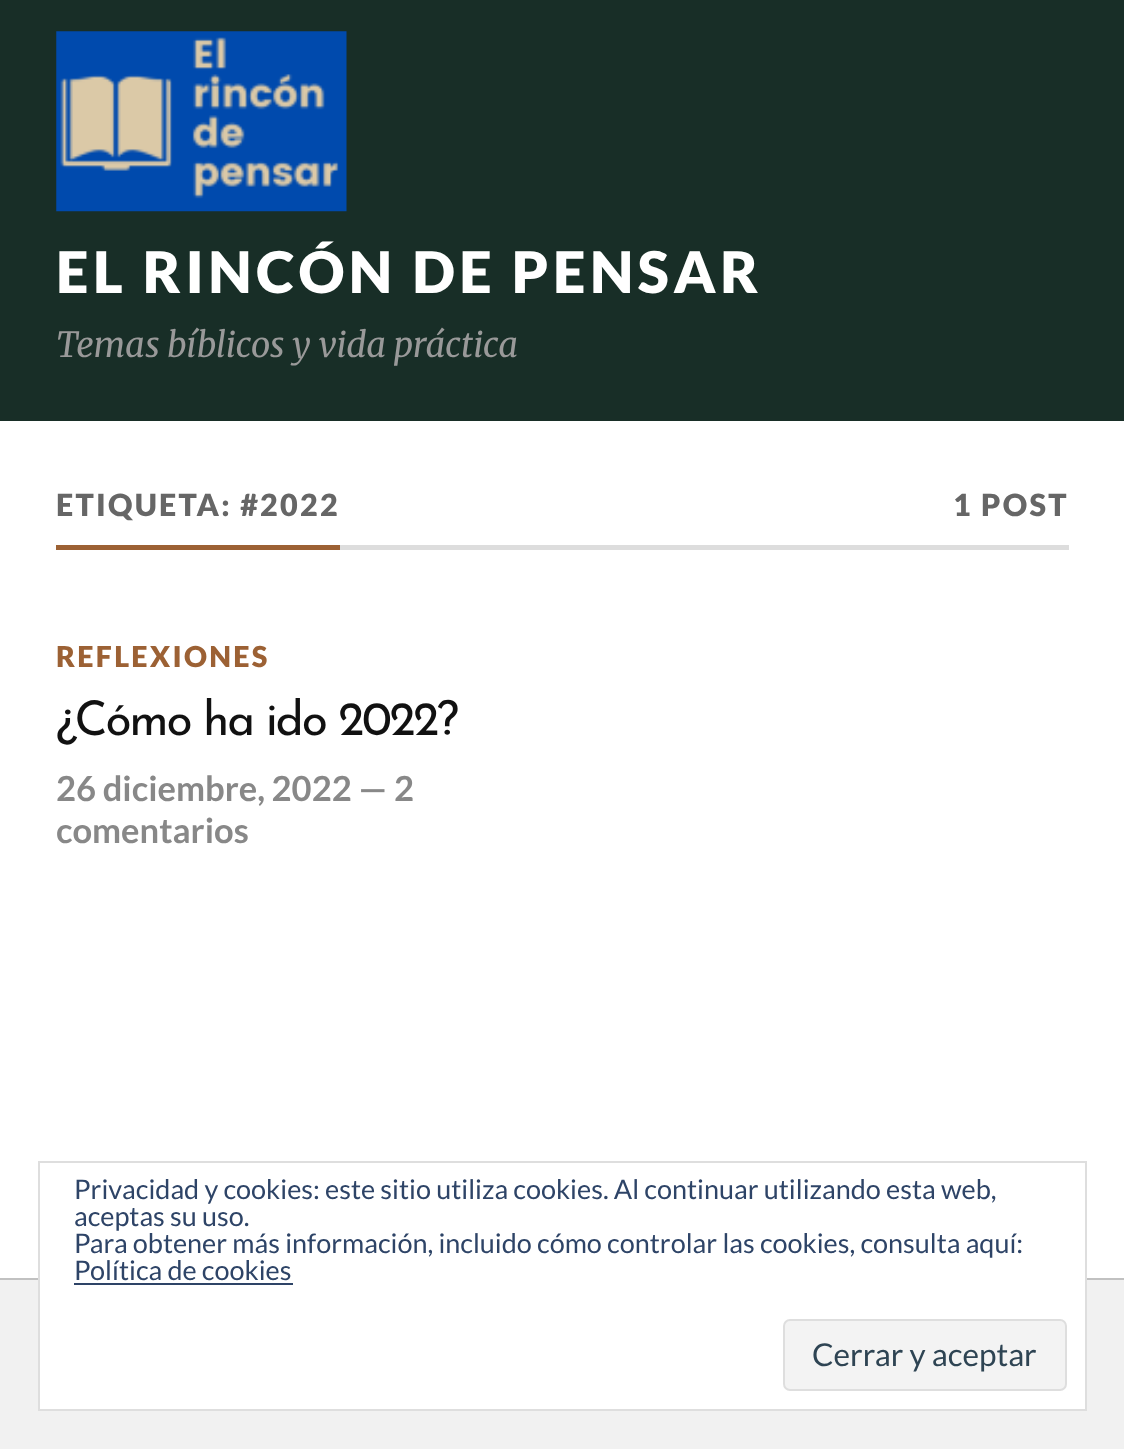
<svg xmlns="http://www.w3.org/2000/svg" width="1124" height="1449">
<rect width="100%" height="100%" fill="#fff"/>
<rect width="1124" height="421" fill="#182e27"/>
<image x="56" y="31" width="291" height="181" href="media/1.png"/>
<text x="56" y="293" style="font-family:Lato;font-size:57.4px;font-weight:900;letter-spacing:4.5px;fill:#fff">EL RINCÓN DE PENSAR</text>
<text x="56" y="357" style="font-family:Merriweather;font-size:34.5px;font-weight:300;font-style:italic;fill:#999">Temas bíblicos y vida práctica</text>
<rect x="340" y="545" width="729" height="5" fill="#ddd"/>
<rect x="56" y="545" width="284" height="5" fill="#9c6134"/>
<text x="56" y="516" style="font-family:Lato;font-size:30.5px;font-weight:900;letter-spacing:2.25px;fill:#666">ETIQUETA: #2022</text>
<text x="953" y="516" style="font-family:Lato;font-size:30.5px;font-weight:900;letter-spacing:2.25px;fill:#666">1 POST</text>
<text x="56" y="667" style="font-family:Lato;font-size:28.75px;font-weight:900;letter-spacing:2.25px;fill:#9c6134">REFLEXIONES</text>
<text x="56" y="735" style="font-family:Josefin Sans;font-size:47.75px;font-weight:100;letter-spacing:-2.25px;fill:#111">¿Cómo ha ido 2022?</text>
<text x="56" y="801" style="font-family:Lato;font-size:34.5px;font-weight:bold;fill:#888">26 diciembre, 2022 — 2</text>
<text x="56" y="843" style="font-family:Lato;font-size:34.5px;font-weight:bold;fill:#888">comentarios</text>
<rect y="1280" width="1124" height="169" fill="#f1f1f1"/>
<rect y="1278" width="1124" height="2" fill="#c1c1c1"/>
<rect x="40" y="1278" width="1045" height="131" fill="#fff"/>
<rect x="39" y="1162" width="1047" height="248" fill="none" stroke="#dedede" stroke-width="2"/>
<text x="74" y="1199" style="font-family:Lato;font-size:27px;fill:#2e4467">Privacidad y cookies: este sitio utiliza cookies. Al continuar utilizando esta web,</text>
<text x="74" y="1226" style="font-family:Lato;font-size:27px;fill:#2e4467">aceptas su uso.</text>
<text x="74" y="1253" style="font-family:Lato;font-size:27px;fill:#2e4467">Para obtener más información, incluido cómo controlar las cookies, consulta aquí:</text>
<text x="74" y="1280" style="font-family:Lato;font-size:27px;fill:#2e4467">Política de cookies</text>
<rect x="74" y="1283" width="219" height="2" fill="#2e4467"/>
<rect x="784" y="1320" width="282" height="70" rx="6" fill="#f3f3f3" stroke="#dedede" stroke-width="2"/>
<text x="812" y="1366" style="font-family:Lato;font-size:31.5px;fill:#2e4453">Cerrar y aceptar</text>
</svg>
